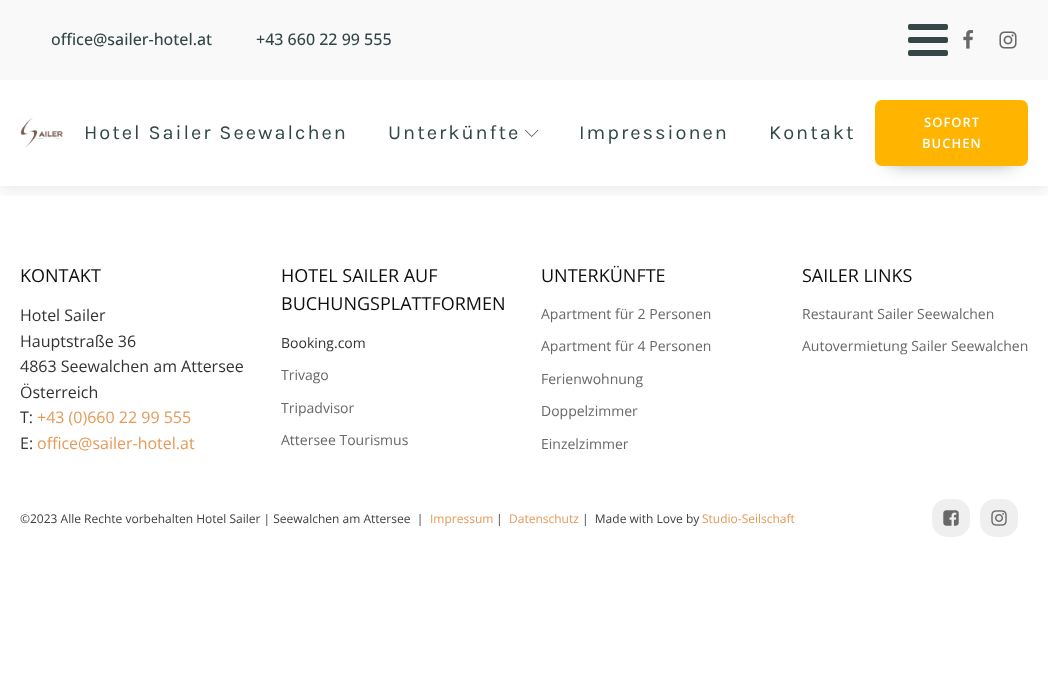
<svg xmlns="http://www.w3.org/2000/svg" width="1048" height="683">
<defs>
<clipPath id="clip1"><rect x="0" y="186" width="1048" height="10"/></clipPath>
</defs>
<rect width="100%" height="100%" fill="#fff"/>
<g clip-path="url(#clip1)">
<rect y="5" width="1048" height="186" fill="#00000014" filter="blur(7.5px)"/>
</g>
<rect width="1048" height="80" fill="#f9f9f9"/>
<text x="51" y="45" style="font-family:Open Sans;font-size:16px;font-weight:500;fill:#344648">office@sailer-hotel.at</text>
<text x="256" y="45" style="font-family:Open Sans;font-size:16px;font-weight:500;fill:#344648">+43 660 22 99 555</text>
<rect x="908" y="24" width="40" height="6" rx="2" fill="#344648"/>
<rect x="908" y="37" width="40" height="6" rx="2" fill="#344648"/>
<rect x="908" y="50" width="40" height="6" rx="2" fill="#344648"/>
<image x="963" y="30" width="10" height="19" href="media/1.png"/>
<image x="999" y="31" width="18" height="18" href="media/2.png"/>
<image x="20" y="117" width="43" height="31" href="media/3.png"/>
<text x="84" y="139" style="font-family:Karla;font-size:20px;letter-spacing:2px;fill:#344648">Hotel Sailer Seewalchen</text>
<text x="388" y="139" style="font-family:Karla;font-size:20px;letter-spacing:2px;fill:#344648">Unterkünfte</text>
<image x="525" y="129" width="14" height="8" href="media/4.png"/>
<text x="579" y="139" style="font-family:Karla;font-size:20px;letter-spacing:2px;fill:#344648">Impressionen</text>
<text x="769" y="139" style="font-family:Karla;font-size:20px;letter-spacing:2px;fill:#344648">Kontakt</text>
<rect x="890" y="125" width="123" height="36" fill="#00000080" filter="blur(10px)"/>
<rect x="875" y="100" width="153" height="66" rx="7" fill="#ffb400"/>
<text x="924" y="127" style="font-family:Open Sans;font-size:13px;font-weight:600;letter-spacing:1px;fill:#fff">SOFORT</text>
<text x="922" y="148" style="font-family:Open Sans;font-size:13px;font-weight:600;letter-spacing:1px;fill:#fff">BUCHEN</text>
<text x="20" y="282" style="font-family:Open Sans;font-size:18px;fill:#0f0f0f">KONTAKT</text>
<text x="20" y="321" style="font-family:Open Sans;font-size:16px;fill:#333">Hotel Sailer</text>
<text x="20" y="347" style="font-family:Open Sans;font-size:16px;fill:#333">Hauptstraße 36</text>
<text x="20" y="372" style="font-family:Open Sans;font-size:16px;fill:#333">4863 Seewalchen am Attersee</text>
<text x="20" y="398" style="font-family:Open Sans;font-size:16px;fill:#333">Österreich</text>
<text x="20" y="423" style="font-family:Open Sans;font-size:16px;fill:#333">T:</text>
<text x="37" y="423" style="font-family:Open Sans;font-size:16px;fill:#e59a59">+43 (0)660 22 99 555</text>
<text x="20" y="449" style="font-family:Open Sans;font-size:16px;fill:#333">E:</text>
<text x="37" y="449" style="font-family:Open Sans;font-size:16px;fill:#e59a59">office@sailer-hotel.at</text>
<text x="281" y="282" style="font-family:Open Sans;font-size:18px;fill:#0f0f0f">HOTEL SAILER AUF</text>
<text x="281" y="310" style="font-family:Open Sans;font-size:18px;fill:#0f0f0f">BUCHUNGSPLATTFORMEN</text>
<text x="281" y="348" style="font-family:Open Sans;font-size:14px;fill:#333">Booking.com</text>
<text x="281" y="380" style="font-family:Open Sans;font-size:14px;fill:#686868">Trivago</text>
<text x="281" y="413" style="font-family:Open Sans;font-size:14px;fill:#686868">Tripadvisor</text>
<text x="281" y="445" style="font-family:Open Sans;font-size:14px;fill:#686868">Attersee Tourismus</text>
<text x="541" y="282" style="font-family:Open Sans;font-size:18px;fill:#0f0f0f">UNTERKÜNFTE</text>
<text x="541" y="319" style="font-family:Open Sans;font-size:14px;fill:#686868">Apartment für 2 Personen</text>
<text x="541" y="351" style="font-family:Open Sans;font-size:14px;fill:#686868">Apartment für 4 Personen</text>
<text x="541" y="384" style="font-family:Open Sans;font-size:14px;fill:#686868">Ferienwohnung</text>
<text x="541" y="416" style="font-family:Open Sans;font-size:14px;fill:#686868">Doppelzimmer</text>
<text x="541" y="449" style="font-family:Open Sans;font-size:14px;fill:#686868">Einzelzimmer</text>
<text x="802" y="282" style="font-family:Open Sans;font-size:18px;fill:#0f0f0f">SAILER LINKS</text>
<text x="802" y="319" style="font-family:Open Sans;font-size:14px;fill:#686868">Restaurant Sailer Seewalchen</text>
<text x="802" y="351" style="font-family:Open Sans;font-size:14px;fill:#686868">Autovermietung Sailer Seewalchen</text>
<text x="20" y="523" style="font-family:Open Sans;font-size:12px;fill:#404040" xml:space="preserve">©2023 Alle Rechte vorbehalten Hotel Sailer | Seewalchen am Attersee  |</text>
<text x="430" y="523" style="font-family:Open Sans;font-size:12px;fill:#e59a59">Impressum</text>
<text x="496" y="523" style="font-family:Open Sans;font-size:12px;fill:#404040">|</text>
<text x="509" y="523" style="font-family:Open Sans;font-size:12px;fill:#e59a59">Datenschutz</text>
<text x="582" y="523" style="font-family:Open Sans;font-size:12px;fill:#404040" xml:space="preserve">|  Made with Love by</text>
<text x="702" y="523" style="font-family:Open Sans;font-size:12px;fill:#e59a59">Studio-Seilschaft</text>
<rect x="932" y="499" width="38" height="38" rx="15" fill="#efefef"/>
<image x="943" y="510" width="16" height="16" href="media/5.png"/>
<rect x="980" y="499" width="38" height="38" rx="15" fill="#efefef"/>
<image x="991" y="510" width="16" height="16" href="media/6.png"/>
</svg>
